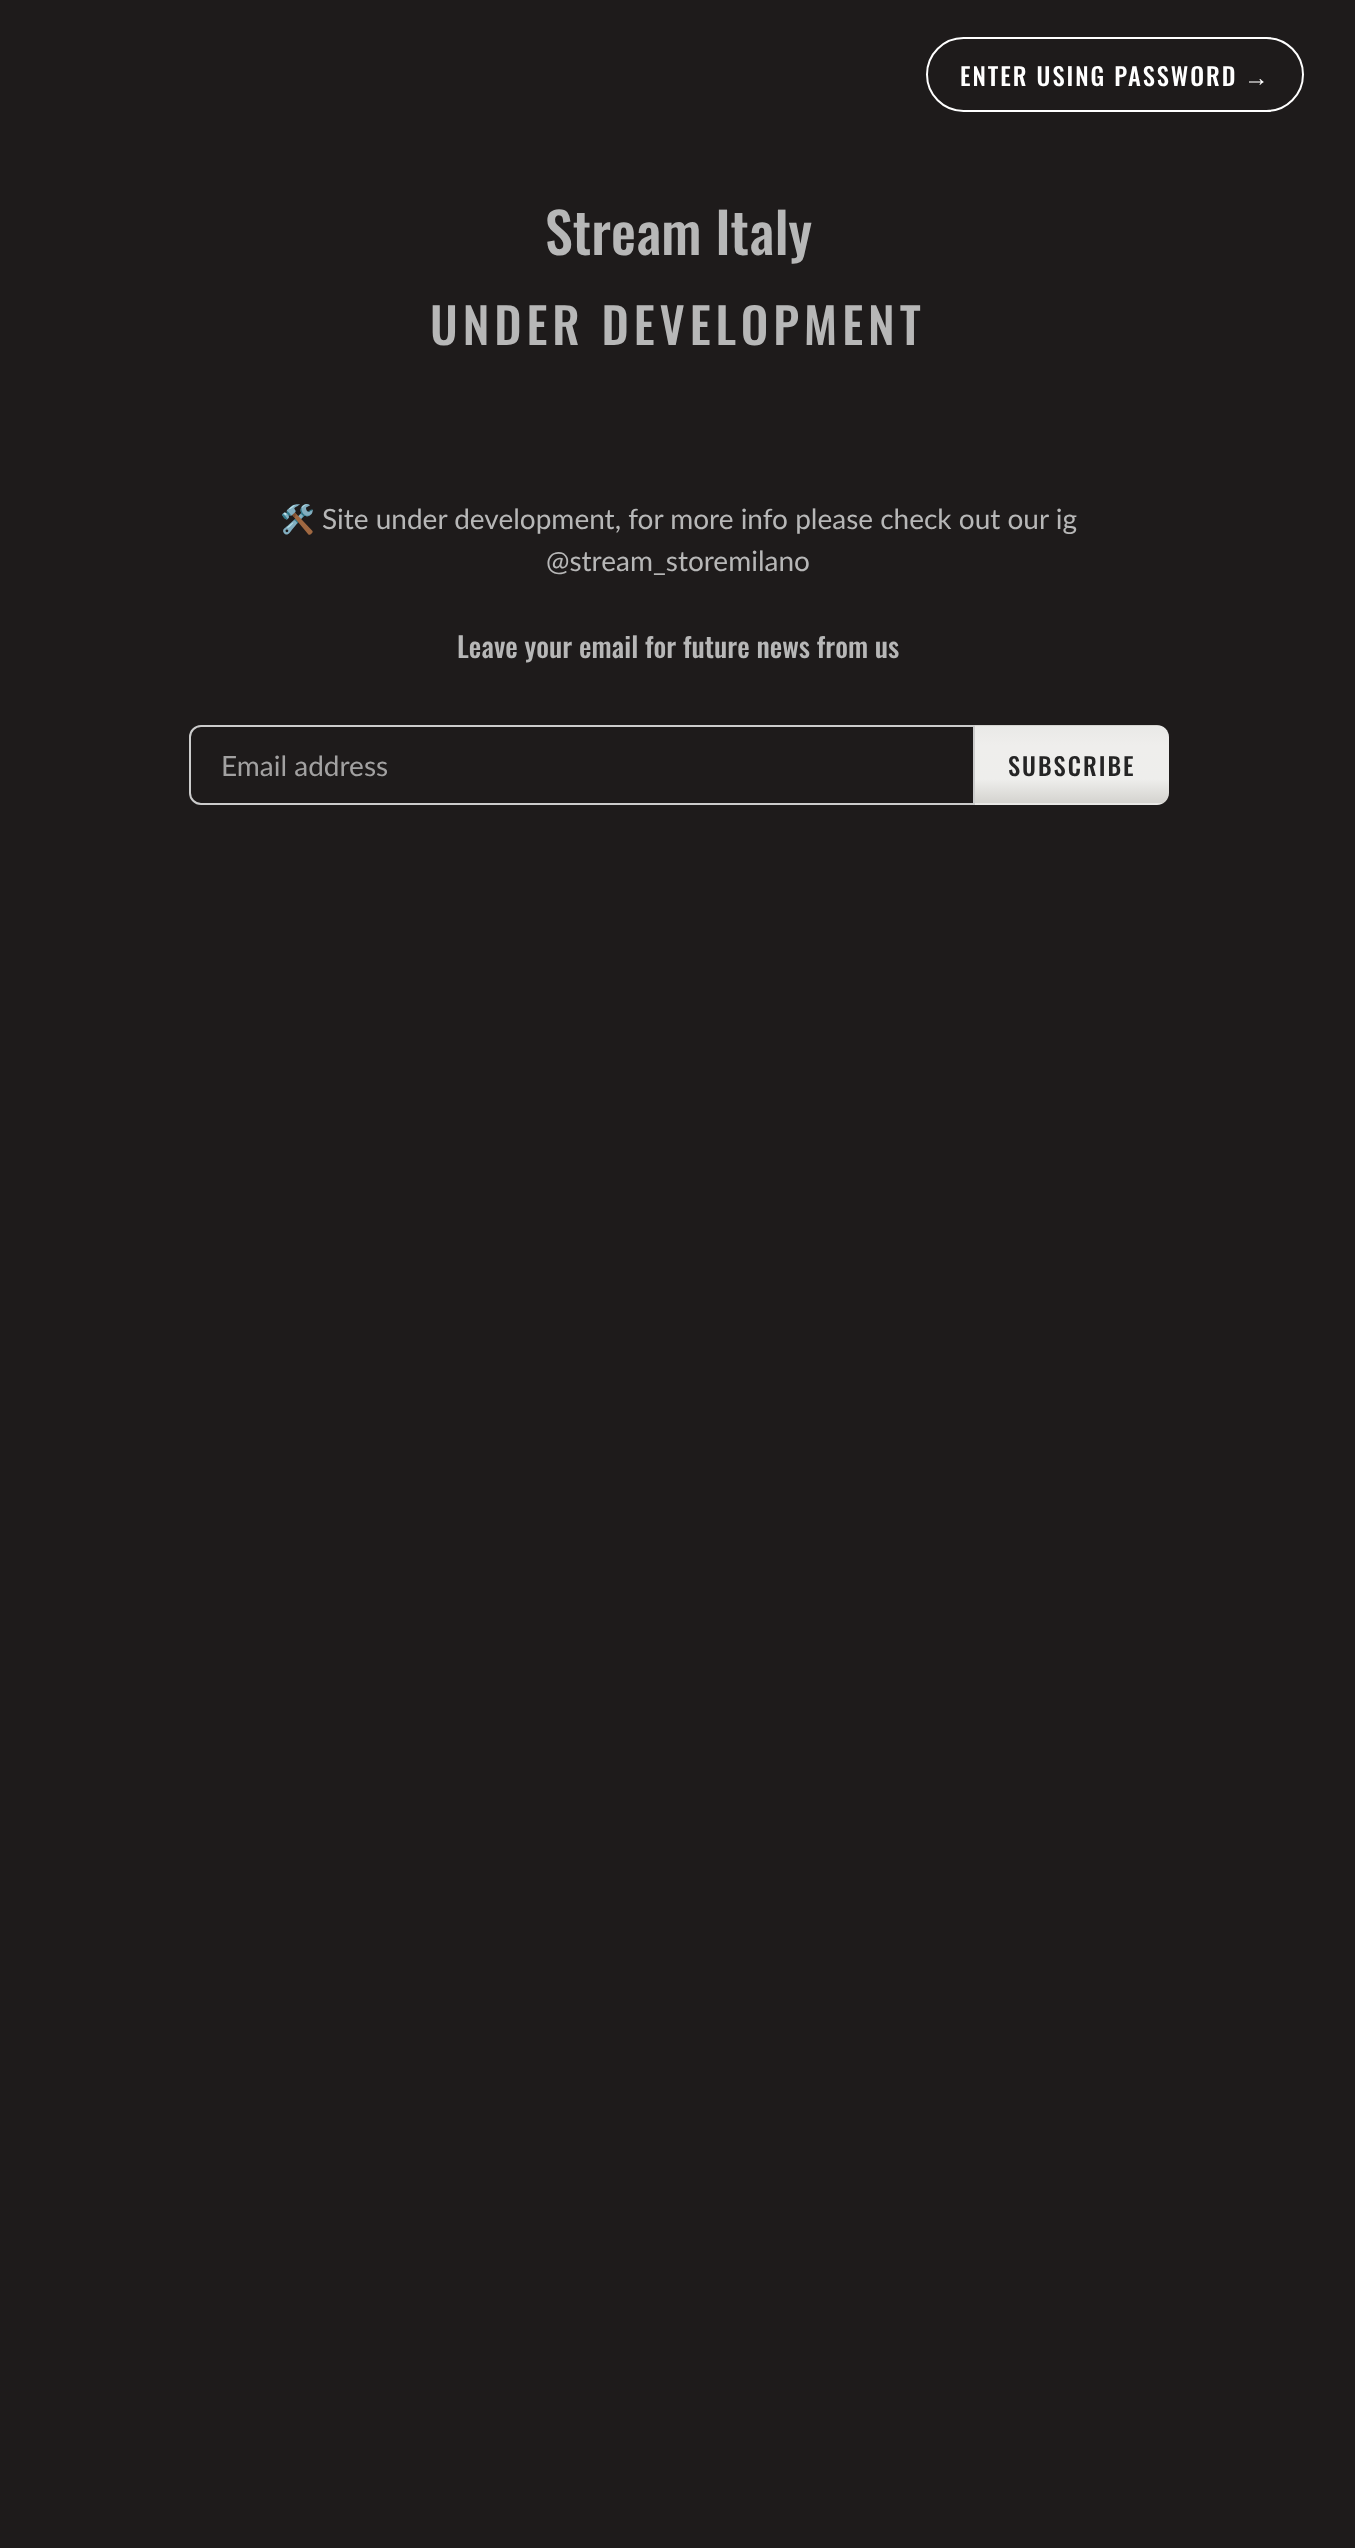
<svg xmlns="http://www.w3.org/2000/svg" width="1355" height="2548">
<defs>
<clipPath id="clip1"><path d="M975 725h182c6.5 0 12 5.5 12 12v56c0 6.5-5.5 12-12 12h-182z"/></clipPath>
<linearGradient id="g1" gradientUnits="userSpaceOnUse" x1="1072" y1="726" x2="1072" y2="649"><stop offset="0" stop-color="#d5d4d0"/><stop offset="0.01" stop-color="#d5d4d0"/><stop offset="0.31" stop-color="#eeeeec"/><stop offset="0.75" stop-color="#efeeec"/><stop offset="1" stop-color="#e9e9e7"/></linearGradient>
<linearGradient id="g2" gradientUnits="userSpaceOnUse" x1="1072" y1="803" x2="1072" y2="726"><stop offset="0" stop-color="#d5d4d0"/><stop offset="0.01" stop-color="#d5d4d0"/><stop offset="0.31" stop-color="#eeeeec"/><stop offset="0.75" stop-color="#efeeec"/><stop offset="1" stop-color="#e9e9e7"/></linearGradient>
<linearGradient id="g3" gradientUnits="userSpaceOnUse" x1="1072" y1="880" x2="1072" y2="803"><stop offset="0" stop-color="#d5d4d0"/><stop offset="0.01" stop-color="#d5d4d0"/><stop offset="0.31" stop-color="#eeeeec"/><stop offset="0.75" stop-color="#efeeec"/><stop offset="1" stop-color="#e9e9e7"/></linearGradient>
</defs>
<rect width="100%" height="100%" fill="#1e1b1b"/>
<rect x="927" y="38" width="376" height="73" rx="36.5" fill="none" stroke="#fff" stroke-width="2"/>
<text x="960" y="86" style="font-family:Oswald;font-size:24.5px;font-weight:500;letter-spacing:2px;fill:#fff">ENTER USING PASSWORD</text>
<text x="1244" y="86" style="font-family:Liberation Sans;font-size:24.5px;letter-spacing:2px;fill:#fff">→</text>
<text x="545" y="255" style="font-family:Oswald;font-size:56px;font-weight:500;fill:#b7b7b7">Stream Italy</text>
<text x="430" y="345" style="font-family:Oswald;font-size:49px;font-weight:500;letter-spacing:4.9px;fill:#b7b7b7">UNDER DEVELOPMENT</text>
<text x="280" y="529" style="font-family:Noto Color Emoji;font-size:28px;fill:#b7b7b7">🛠️</text>
<text x="322" y="529" style="font-family:Lato;font-size:28px;fill:#b7b7b7">Site under development, for more info please check out our ig</text>
<text x="546" y="571" style="font-family:Lato;font-size:28px;fill:#b7b7b7">@stream_storemilano</text>
<text x="457" y="658" style="font-family:Oswald;font-size:28px;font-weight:500;fill:#b7b7b7">Leave your email for future news from us</text>
<path d="M201 726h773v78h-773c-6 0-11-5-11-11v-56c0-6 5-11 11-11z" fill="none" stroke="#ccc" stroke-width="2"/>
<text x="221" y="776" style="font-family:Lato;font-size:28px;fill:#a2a1a1">Email address</text>
<g clip-path="url(#clip1)">
<rect x="975" y="725" width="194" height="1" fill="url(#g1)"/>
<rect x="975" y="726" width="194" height="77" fill="url(#g2)"/>
<rect x="975" y="803" width="194" height="2" fill="url(#g3)"/>
</g>
<text x="1008" y="776" style="font-family:Oswald;font-size:24.5px;font-weight:500;letter-spacing:2px;fill:#252525">SUBSCRIBE</text>
</svg>
